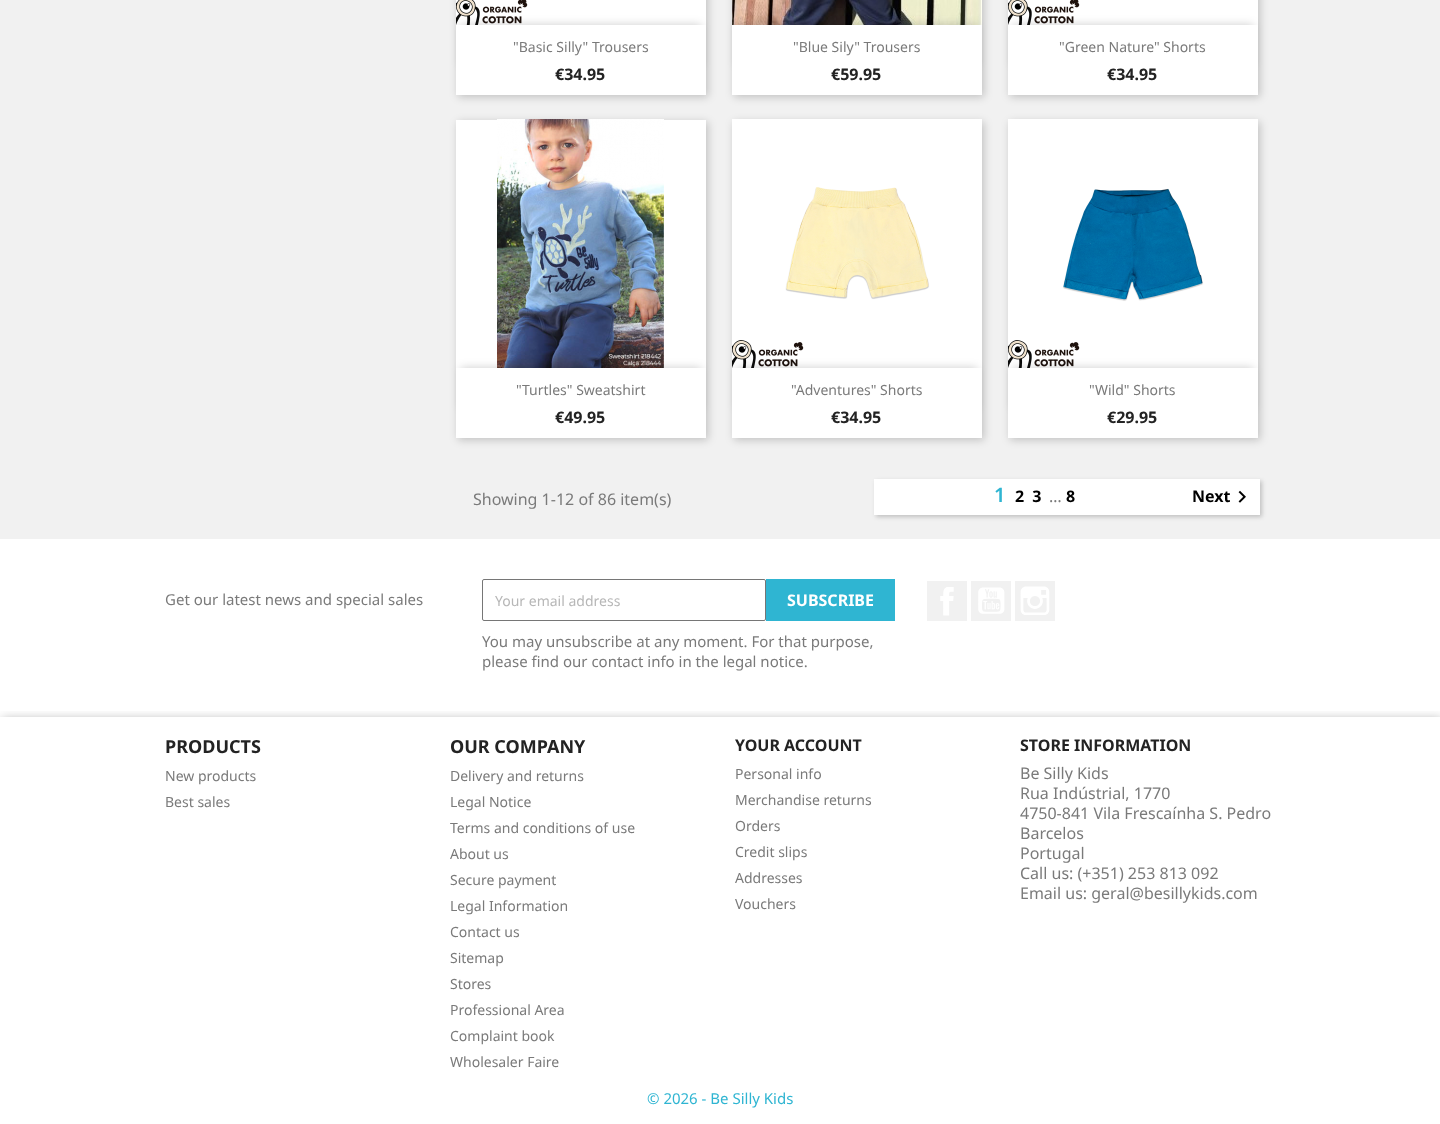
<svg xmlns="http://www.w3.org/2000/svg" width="1440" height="1124">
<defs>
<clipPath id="clip1"><rect x="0" y="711" width="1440" height="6"/></clipPath>
</defs>
<rect width="100%" height="100%" fill="#fff"/>
<rect width="1440" height="539" fill="#f1f1f1"/>
<rect x="458" y="-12" width="250" height="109" fill="#00000033" filter="blur(4px)"/>
<rect x="528" width="178" height="25" fill="#fff"/>
<image x="456" y="0" width="72" height="25" href="media/1.png"/>
<rect x="461" y="25" width="240" height="40" fill="#00000033" filter="blur(5px)"/>
<rect x="456" y="25" width="250" height="70" fill="#fff"/>
<text x="513" y="52" style="font-family:Noto Sans;font-size:14px;fill:#7a7a7a">"Basic Silly" Trousers</text>
<text x="555" y="80" style="font-family:Noto Sans;font-size:16px;font-weight:bold;fill:#232323">€34.95</text>
<rect x="734" y="-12" width="250" height="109" fill="#00000033" filter="blur(4px)"/>
<image x="732" y="0" width="250" height="25" href="media/2.png"/>
<rect x="737" y="25" width="240" height="40" fill="#00000033" filter="blur(5px)"/>
<rect x="732" y="25" width="250" height="70" fill="#fff"/>
<text x="793" y="52" style="font-family:Noto Sans;font-size:14px;fill:#7a7a7a">"Blue Sily" Trousers</text>
<text x="831" y="80" style="font-family:Noto Sans;font-size:16px;font-weight:bold;fill:#232323">€59.95</text>
<rect x="1010" y="-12" width="250" height="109" fill="#00000033" filter="blur(4px)"/>
<rect x="1080" width="178" height="25" fill="#fff"/>
<image x="1008" y="0" width="72" height="25" href="media/1.png"/>
<rect x="1013" y="25" width="240" height="40" fill="#00000033" filter="blur(5px)"/>
<rect x="1008" y="25" width="250" height="70" fill="#fff"/>
<text x="1059" y="52" style="font-family:Noto Sans;font-size:14px;fill:#7a7a7a">"Green Nature" Shorts</text>
<text x="1107" y="80" style="font-family:Noto Sans;font-size:16px;font-weight:bold;fill:#232323">€34.95</text>
<rect x="458" y="122" width="250" height="318" fill="#00000033" filter="blur(4px)"/>
<rect x="456" y="120" width="250" height="248" fill="#fff"/>
<image x="497" y="119" width="167" height="249" href="media/3.png"/>
<rect x="461" y="368" width="240" height="40" fill="#00000033" filter="blur(5px)"/>
<rect x="456" y="368" width="250" height="70" fill="#fff"/>
<text x="516" y="395" style="font-family:Noto Sans;font-size:14px;fill:#7a7a7a">"Turtles" Sweatshirt</text>
<text x="555" y="423" style="font-family:Noto Sans;font-size:16px;font-weight:bold;fill:#232323">€49.95</text>
<rect x="734" y="122" width="250" height="318" fill="#00000033" filter="blur(4px)"/>
<image x="732" y="119" width="250" height="249" href="media/4.png"/>
<rect x="737" y="368" width="240" height="40" fill="#00000033" filter="blur(5px)"/>
<rect x="732" y="368" width="250" height="70" fill="#fff"/>
<text x="791" y="395" style="font-family:Noto Sans;font-size:14px;fill:#7a7a7a">"Adventures" Shorts</text>
<text x="831" y="423" style="font-family:Noto Sans;font-size:16px;font-weight:bold;fill:#232323">€34.95</text>
<rect x="1010" y="122" width="250" height="318" fill="#00000033" filter="blur(4px)"/>
<image x="1008" y="119" width="250" height="249" href="media/5.png"/>
<rect x="1013" y="368" width="240" height="40" fill="#00000033" filter="blur(5px)"/>
<rect x="1008" y="368" width="250" height="70" fill="#fff"/>
<text x="1089" y="395" style="font-family:Noto Sans;font-size:14px;fill:#7a7a7a">"Wild" Shorts</text>
<text x="1107" y="423" style="font-family:Noto Sans;font-size:16px;font-weight:bold;fill:#232323">€29.95</text>
<text x="473" y="505" style="font-family:Noto Sans;font-size:16px;fill:#7a7a7a">Showing 1-12 of 86 item(s)</text>
<rect x="876" y="481" width="386" height="36" fill="#00000033" filter="blur(2px)"/>
<rect x="874" y="479" width="386" height="36" fill="#fff"/>
<text x="994" y="502" style="font-family:Noto Sans;font-size:20px;font-weight:600;letter-spacing:2px;fill:#2fb5d2">1</text>
<text x="1015" y="502" style="font-family:Noto Sans;font-size:16px;font-weight:bold;letter-spacing:2px;fill:#000">2 3</text>
<text x="1049" y="502" style="font-family:Noto Sans;font-size:16px;fill:#7a7a7a">…</text>
<text x="1066" y="502" style="font-family:Noto Sans;font-size:16px;font-weight:bold;letter-spacing:2px;fill:#000">8</text>
<text x="1192" y="502" style="font-family:Noto Sans;font-size:16px;font-weight:bold;fill:#000">Next</text>
<image x="1238" y="490" width="8" height="13" href="media/6.png"/>
<text x="165" y="605" style="font-family:Noto Sans;font-size:15px;fill:#7a7a7a">Get our latest news and special sales</text>
<rect x="482.5" y="579.5" width="283" height="41" rx="1.5" fill="none" stroke="#767676"/>
<text x="495" y="606" style="font-family:Noto Sans;font-size:14px;fill:#b7b7b7">Your email address</text>
<rect x="766" y="579" width="129" height="42" fill="#2fb5d2"/>
<text x="787" y="606" style="font-family:Noto Sans;font-size:16px;font-weight:bold;fill:#fff">SUBSCRIBE</text>
<text x="482" y="647" style="font-family:Noto Sans;font-size:15px;fill:#7a7a7a">You may unsubscribe at any moment. For that purpose,</text>
<text x="482" y="667" style="font-family:Noto Sans;font-size:15px;fill:#7a7a7a">please find our contact info in the legal notice.</text>
<rect x="927" y="581" width="40" height="40" fill="#f1f1f1"/>
<image x="940" y="587" width="14" height="29" href="media/7.png"/>
<rect x="971" y="581" width="40" height="40" fill="#f1f1f1"/>
<image x="978" y="587" width="27" height="27" href="media/8.png"/>
<rect x="1015" y="581" width="40" height="40" fill="#f1f1f1"/>
<image x="1020" y="586" width="30" height="29" href="media/9.png"/>
<g clip-path="url(#clip1)">
<rect x="2" y="719" width="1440" height="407" fill="#0000004d" filter="blur(5.5px)"/>
</g>
<text x="165" y="753" style="font-family:Noto Sans;font-size:18px;font-weight:bold;fill:#232323">PRODUCTS</text>
<text x="165" y="781" style="font-family:Noto Sans;font-size:14px;fill:#7a7a7a">New products</text>
<text x="165" y="807" style="font-family:Noto Sans;font-size:14px;fill:#7a7a7a">Best sales</text>
<text x="450" y="753" style="font-family:Noto Sans;font-size:18px;font-weight:bold;fill:#232323">OUR COMPANY</text>
<text x="450" y="781" style="font-family:Noto Sans;font-size:14px;fill:#7a7a7a">Delivery and returns</text>
<text x="450" y="807" style="font-family:Noto Sans;font-size:14px;fill:#7a7a7a">Legal Notice</text>
<text x="450" y="833" style="font-family:Noto Sans;font-size:14px;fill:#7a7a7a">Terms and conditions of use</text>
<text x="450" y="859" style="font-family:Noto Sans;font-size:14px;fill:#7a7a7a">About us</text>
<text x="450" y="885" style="font-family:Noto Sans;font-size:14px;fill:#7a7a7a">Secure payment</text>
<text x="450" y="911" style="font-family:Noto Sans;font-size:14px;fill:#7a7a7a">Legal Information</text>
<text x="450" y="937" style="font-family:Noto Sans;font-size:14px;fill:#7a7a7a">Contact us</text>
<text x="450" y="963" style="font-family:Noto Sans;font-size:14px;fill:#7a7a7a">Sitemap</text>
<text x="450" y="989" style="font-family:Noto Sans;font-size:14px;fill:#7a7a7a">Stores</text>
<text x="450" y="1015" style="font-family:Noto Sans;font-size:14px;fill:#7a7a7a">Professional Area</text>
<text x="450" y="1041" style="font-family:Noto Sans;font-size:14px;fill:#7a7a7a">Complaint book</text>
<text x="450" y="1067" style="font-family:Noto Sans;font-size:14px;fill:#7a7a7a">Wholesaler Faire</text>
<text x="735" y="751" style="font-family:Noto Sans;font-size:16px;font-weight:bold;fill:#232323">YOUR ACCOUNT</text>
<text x="735" y="779" style="font-family:Noto Sans;font-size:14px;fill:#7a7a7a">Personal info</text>
<text x="735" y="805" style="font-family:Noto Sans;font-size:14px;fill:#7a7a7a">Merchandise returns</text>
<text x="735" y="831" style="font-family:Noto Sans;font-size:14px;fill:#7a7a7a">Orders</text>
<text x="735" y="857" style="font-family:Noto Sans;font-size:14px;fill:#7a7a7a">Credit slips</text>
<text x="735" y="883" style="font-family:Noto Sans;font-size:14px;fill:#7a7a7a">Addresses</text>
<text x="735" y="909" style="font-family:Noto Sans;font-size:14px;fill:#7a7a7a">Vouchers</text>
<text x="1020" y="751" style="font-family:Noto Sans;font-size:16px;font-weight:bold;fill:#232323">STORE INFORMATION</text>
<text x="1020" y="779" style="font-family:Noto Sans;font-size:16px;fill:#7a7a7a">Be Silly Kids</text>
<text x="1020" y="799" style="font-family:Noto Sans;font-size:16px;fill:#7a7a7a">Rua Indústrial, 1770</text>
<text x="1020" y="819" style="font-family:Noto Sans;font-size:16px;fill:#7a7a7a">4750-841 Vila Frescaínha S. Pedro</text>
<text x="1020" y="839" style="font-family:Noto Sans;font-size:16px;fill:#7a7a7a">Barcelos</text>
<text x="1020" y="859" style="font-family:Noto Sans;font-size:16px;fill:#7a7a7a">Portugal</text>
<text x="1020" y="879" style="font-family:Noto Sans;font-size:16px;fill:#7a7a7a">Call us: (+351) 253 813 092</text>
<text x="1020" y="899" style="font-family:Noto Sans;font-size:16px;fill:#7a7a7a">Email us: geral@besillykids.com</text>
<text x="647" y="1104" style="font-family:Noto Sans;font-size:15px;fill:#2fb5d2">© 2026 - Be Silly Kids</text>
</svg>
